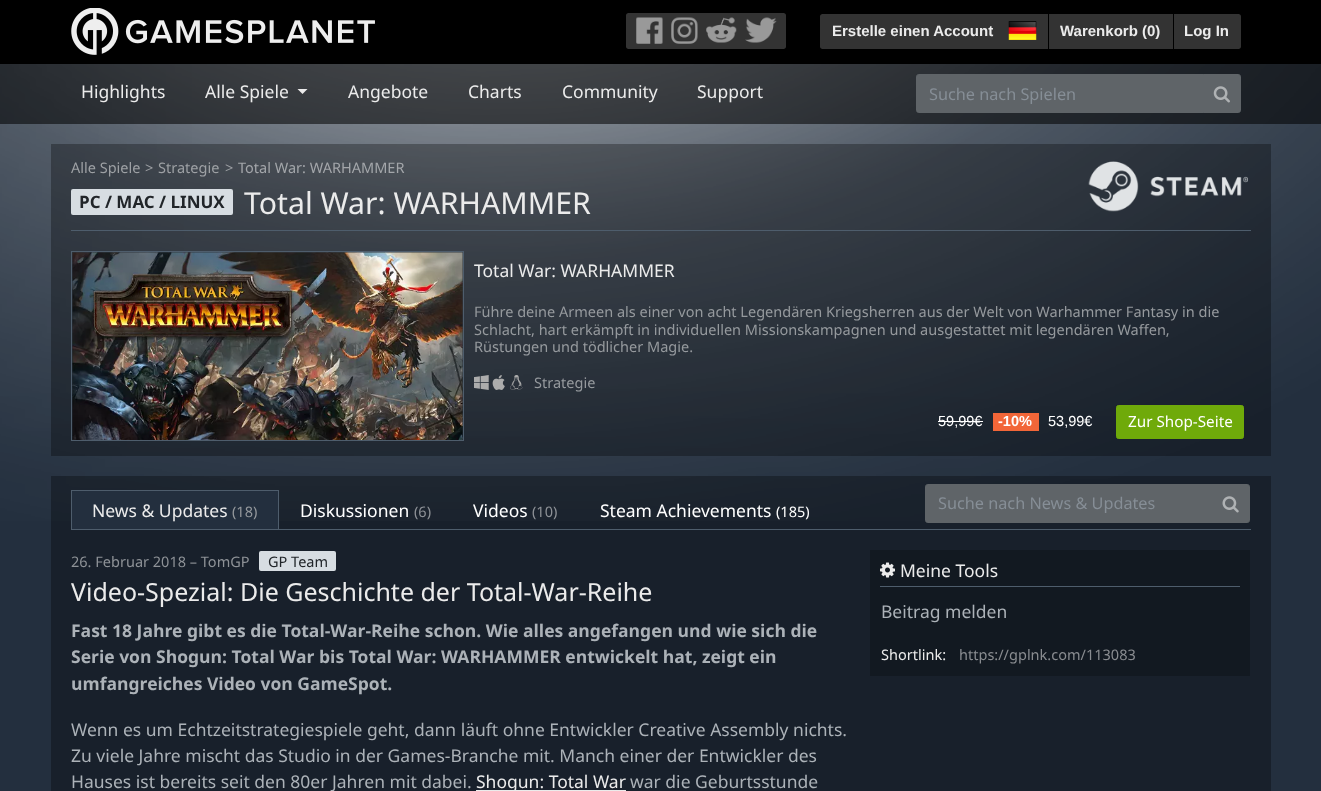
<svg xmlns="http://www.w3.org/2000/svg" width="1321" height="791">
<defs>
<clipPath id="clip1"><rect x="71" y="490" width="1180" height="39"/></clipPath>
</defs>
<rect width="100%" height="100%" fill="#232f3e"/>
<image x="0" y="64" width="1321" height="457" href="media/1.png"/>
<rect width="1321" height="64" fill="#000"/>
<image x="71" y="8" width="304" height="47" href="media/2.png"/>
<path d="M628.5 13h39.5v36h-39.5c-1.5 0-2.5-1-2.5-2.5v-31c0-1.5 1-2.5 2.5-2.5z" fill="#333"/>
<image x="636" y="17" width="27" height="27" href="media/3.png"/>
<rect x="668" y="13" width="72" height="36" fill="#333"/>
<image x="671" y="17" width="27" height="27" href="media/4.png"/>
<path d="M740 13h43.5c1.5 0 2.5 1 2.5 2.5v31c0 1.5-1 2.5-2.5 2.5h-43.5z" fill="#333"/>
<image x="745" y="17" width="32" height="26" href="media/5.png"/>
<image x="706" y="17" width="31" height="26" href="media/6.png"/>
<path d="M822.5 14h181.5v35h-181.5c-1.5 0-2.5-1-2.5-2.5v-30c0-1.5 1-2.5 2.5-2.5z" fill="#333"/>
<text x="832" y="36" style="font-family:Liberation Sans;font-size:15px;font-weight:bold;fill:#ebebeb">Erstelle einen Account</text>
<rect x="1004" y="14" width="44" height="35" fill="#333"/>
<image x="1008" y="21" width="29" height="19" href="media/7.png"/>
<rect x="1049" y="14" width="124" height="35" fill="#333"/>
<text x="1060" y="36" style="font-family:Liberation Sans;font-size:15px;font-weight:bold;fill:#ebebeb">Warenkorb (0)</text>
<path d="M1174 14h64.5c1.5 0 2.5 1 2.5 2.5v30c0 1.5-1 2.5-2.5 2.5h-64.5z" fill="#333"/>
<text x="1184" y="36" style="font-family:Liberation Sans;font-size:15px;font-weight:bold;fill:#ebebeb">Log In</text>
<rect y="64" width="1321" height="60" fill="#0000008c"/>
<text x="81" y="98" style="font-family:Noto Sans;font-size:17.5px;fill:#ebebeb">Highlights</text>
<text x="205" y="98" style="font-family:Noto Sans;font-size:17.5px;fill:#ebebeb">Alle Spiele</text>
<path d="M297.5 89h10l-5 5z" fill="#ebebeb"/>
<text x="348" y="98" style="font-family:Noto Sans;font-size:17.5px;fill:#ebebeb">Angebote</text>
<text x="468" y="98" style="font-family:Noto Sans;font-size:17.5px;fill:#ebebeb">Charts</text>
<text x="562" y="98" style="font-family:Noto Sans;font-size:17.5px;fill:#ebebeb">Community</text>
<text x="697" y="98" style="font-family:Noto Sans;font-size:17.5px;fill:#ebebeb">Support</text>
<path d="M918.5 74.5h285v38h-285c-1 0-2-1-2-2v-34c0-1 1-2 2-2z" fill="#5f6468" stroke="#5f6468"/>
<text x="929" y="100" style="font-family:Noto Sans;font-size:16.25px;fill:#868e96">Suche nach Spielen</text>
<path d="M1203.5 74.5h35c1 0 2 1 2 2v34c0 1-1 2-2 2h-35z" fill="#5f6468" stroke="#5f6468"/>
<image x="1213" y="86" width="17" height="17" href="media/8.png"/>
<rect x="51" y="144" width="1220" height="312" fill="#0000004d"/>
<text x="71" y="173" style="font-family:Noto Sans;font-size:14.52px;fill:#9da0a4">Alle Spiele</text>
<text x="145" y="173" style="font-family:Noto Sans;font-size:14.52px;fill:#9da0a4">&gt;</text>
<text x="158" y="173" style="font-family:Noto Sans;font-size:14.52px;fill:#9da0a4">Strategie</text>
<text x="225" y="173" style="font-family:Noto Sans;font-size:14.52px;fill:#9da0a4">&gt;</text>
<text x="238" y="173" style="font-family:Noto Sans;font-size:14.52px;fill:#a3a6aa">Total War: WARHAMMER</text>
<rect x="71" y="189" width="162" height="26" rx="2" fill="#d7dde2"/>
<text x="79" y="208" style="font-family:Noto Sans;font-size:17px;font-weight:bold;fill:#212529">PC / MAC / LINUX</text>
<rect x="71" y="230" width="1180" height="1" fill="#4e5d6c"/>
<text x="244" y="214" style="font-family:Noto Sans;font-size:30.25px;fill:#ebebeb">Total War: WARHAMMER</text>
<image x="1088" y="161" width="160" height="51" href="media/9.png"/>
<rect x="71.5" y="251.5" width="392" height="189" fill="none" stroke="#4e5d6c"/>
<image x="72" y="252" width="391" height="188" href="media/10.png"/>
<text x="474" y="277" style="font-family:Noto Sans;font-size:17.5px;fill:#ebebeb">Total War: WARHAMMER</text>
<text x="474" y="317" style="font-family:Noto Sans;font-size:14.52px;fill:#95999d">Führe deine Armeen als einer von acht Legendären Kriegsherren aus der Welt von Warhammer Fantasy in die</text>
<text x="474" y="335" style="font-family:Noto Sans;font-size:14.52px;fill:#95999d">Schlacht, hart erkämpft in individuellen Missionskampagnen und ausgestattet mit legendären Waffen,</text>
<text x="474" y="352" style="font-family:Noto Sans;font-size:14.52px;fill:#95999d">Rüstungen und tödlicher Magie.</text>
<image x="474" y="375" width="15" height="15" href="media/11.png"/>
<image x="492" y="375" width="13" height="15" href="media/12.png"/>
<image x="510" y="375" width="13" height="15" href="media/13.png"/>
<text x="534" y="388" style="font-family:Noto Sans;font-size:14.52px;fill:#95999d">Strategie</text>
<text x="938" y="426" style="font-family:Liberation Sans;font-size:14.52px;fill:#fff">59,99€</text>
<rect x="938" y="421" width="45" height="1" fill="#fff"/>
<rect x="993" y="413" width="46" height="18" fill="#f26638"/>
<text x="998" y="426" style="font-family:Liberation Sans;font-size:14.52px;font-weight:bold;fill:#fff">-10%</text>
<text x="1048" y="426" style="font-family:Liberation Sans;font-size:14.52px;fill:#fff">53,99€</text>
<rect x="1116.5" y="405.5" width="127" height="33" rx="2" fill="#6faa0a" stroke="#6faa0a"/>
<text x="1128" y="427" style="font-family:Noto Sans;font-size:15.25px;fill:#fff">Zur Shop-Seite</text>
<rect x="51" y="476" width="1220" height="315" fill="#0000004d"/>
<rect x="71" y="529" width="1180" height="1" fill="#4e5d6c"/>
<rect x="72" y="491" width="206" height="38" fill="#232f3e"/>
<g clip-path="url(#clip1)">
<rect x="71.5" y="490.5" width="207" height="39" fill="none" stroke="#4e5d6c"/>
</g>
<text x="92" y="517" style="font-family:Noto Sans;font-size:17.5px;fill:#ebebeb">News &amp; Updates</text>
<text x="232" y="517" style="font-family:Noto Sans;font-size:14.52px;fill:#95999d">(18)</text>
<text x="300" y="517" style="font-family:Noto Sans;font-size:17.5px;fill:#fff">Diskussionen</text>
<text x="414" y="517" style="font-family:Noto Sans;font-size:14.52px;fill:#8e9297">(6)</text>
<text x="473" y="517" style="font-family:Noto Sans;font-size:17.5px;fill:#fff">Videos</text>
<text x="532" y="517" style="font-family:Noto Sans;font-size:14.52px;fill:#8e9297">(10)</text>
<text x="600" y="517" style="font-family:Noto Sans;font-size:17.5px;fill:#fff">Steam Achievements</text>
<text x="776" y="517" style="font-family:Noto Sans;font-size:14.52px;fill:#fff">(185)</text>
<path d="M927.5 484.5h285v38h-285c-1 0-2-1-2-2v-34c0-1 1-2 2-2z" fill="#5f6468" stroke="#5f6468"/>
<text x="938" y="509" style="font-family:Noto Sans;font-size:16.25px;fill:#868e96">Suche nach News &amp; Updates</text>
<path d="M1211.5 484.5h36c1 0 2 1 2 2v34c0 1-1 2-2 2h-36z" fill="#5f6468" stroke="#5f6468"/>
<image x="1222" y="496" width="17" height="17" href="media/14.png"/>
<text x="71" y="567" style="font-family:Noto Sans;font-size:14.52px;fill:#8e9297">26. Februar 2018 – TomGP</text>
<rect x="259" y="551" width="77" height="20" rx="2" fill="#d7dde2"/>
<text x="268" y="567" style="font-family:Noto Sans;font-size:14.52px;fill:#212529">GP Team</text>
<text x="71" y="601" style="font-family:Noto Sans;font-size:25px;fill:#ebebeb">Video-Spezial: Die Geschichte der Total-War-Reihe</text>
<text x="71" y="637" style="font-family:Noto Sans;font-size:17.5px;font-weight:bold;fill:#acb2b8">Fast 18 Jahre gibt es die Total-War-Reihe schon. Wie alles angefangen und wie sich die</text>
<text x="71" y="663" style="font-family:Noto Sans;font-size:17.5px;font-weight:bold;fill:#acb2b8">Serie von Shogun: Total War bis Total War: WARHAMMER entwickelt hat, zeigt ein</text>
<text x="71" y="690" style="font-family:Noto Sans;font-size:17.5px;font-weight:bold;fill:#acb2b8">umfangreiches Video von GameSpot.</text>
<text x="71" y="736" style="font-family:Noto Sans;font-size:17.5px;fill:#acb2b8">Wenn es um Echtzeitstrategiespiele geht, dann läuft ohne Entwickler Creative Assembly nichts.</text>
<text x="71" y="762" style="font-family:Noto Sans;font-size:17.5px;fill:#acb2b8">Zu viele Jahre mischt das Studio in der Games-Branche mit. Manch einer der Entwickler des</text>
<text x="71" y="788" style="font-family:Noto Sans;font-size:17.5px;fill:#acb2b8">Hauses ist bereits seit den 80er Jahren mit dabei.</text>
<rect x="476" y="790" width="150" height="1" fill="#ebebeb"/>
<text x="476" y="788" style="font-family:Noto Sans;font-size:17.5px;fill:#ebebeb">Shogun: Total War</text>
<text x="630" y="788" style="font-family:Noto Sans;font-size:17.5px;fill:#acb2b8">war die Geburtsstunde</text>
<rect x="870" y="550" width="380" height="126" fill="#121921"/>
<rect x="880" y="586" width="360" height="1" fill="#4e5d6c"/>
<image x="880" y="562" width="15" height="16" href="media/15.png"/>
<text x="900" y="577" style="font-family:Noto Sans;font-size:17.5px;fill:#ebebeb">Meine Tools</text>
<text x="881" y="618" style="font-family:Noto Sans;font-size:17.5px;fill:#acb2b8">Beitrag melden</text>
<text x="881" y="660" style="font-family:Noto Sans;font-size:14.52px;fill:#ebebeb">Shortlink:</text>
<text x="959" y="660" style="font-family:Noto Sans;font-size:14.52px;fill:#898c90">https://gplnk.com/113083</text>
</svg>
